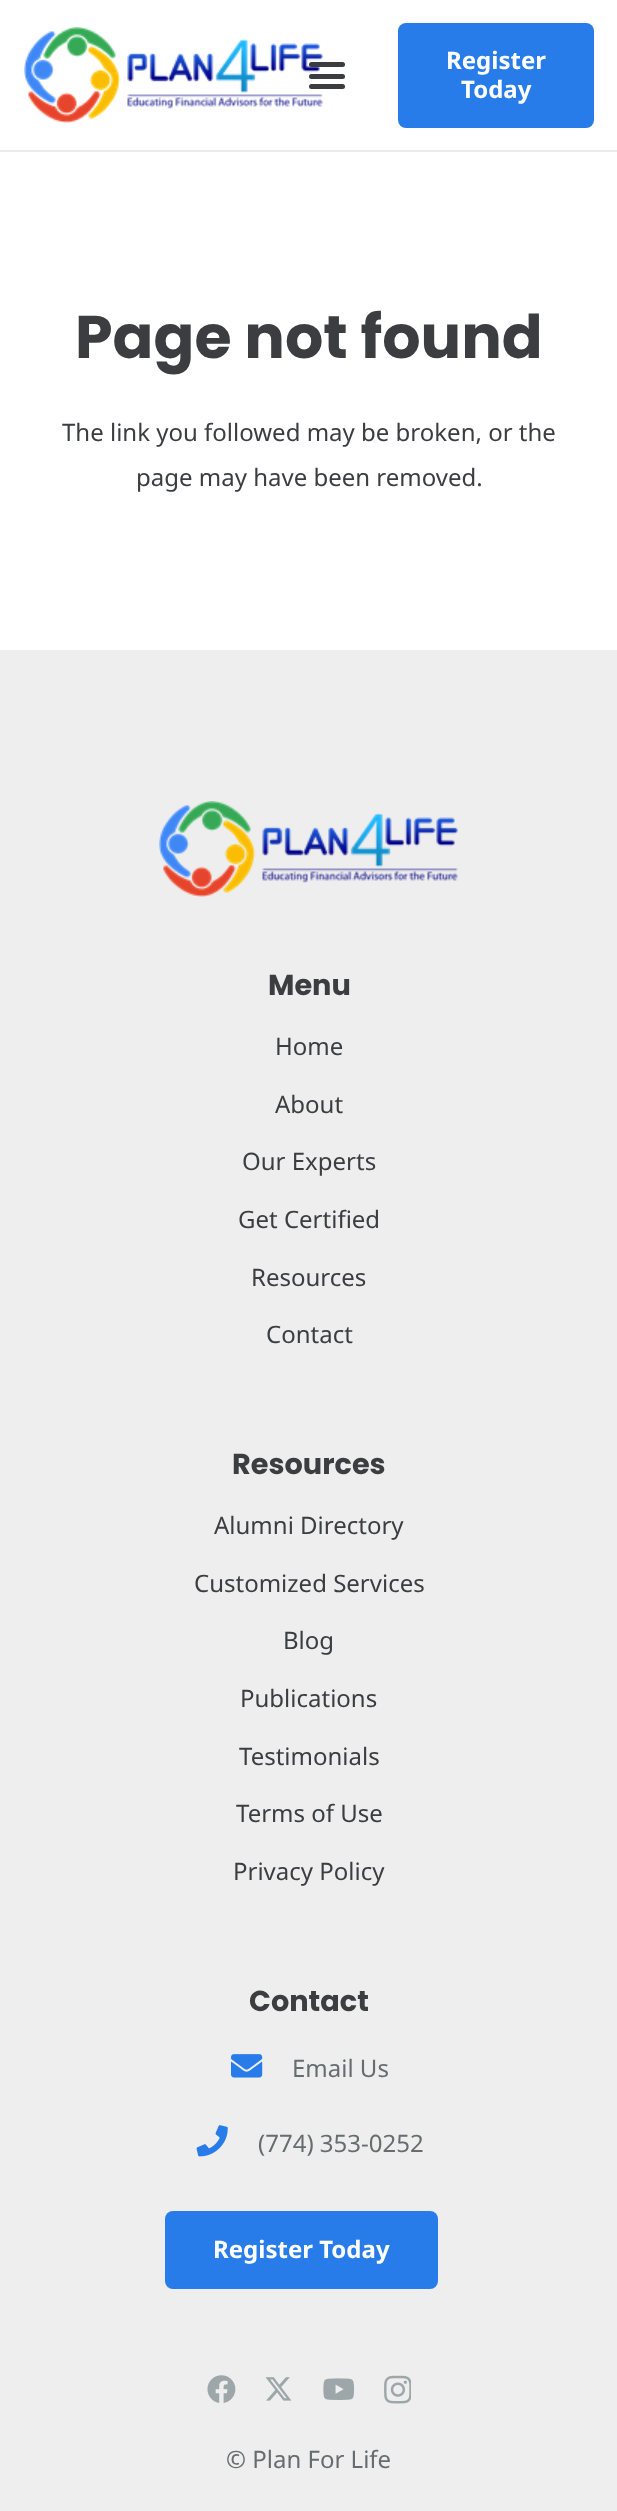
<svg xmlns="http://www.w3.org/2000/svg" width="617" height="2511">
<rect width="100%" height="100%" fill="#fff"/>
<rect y="150" width="617" height="2" fill="#ebebeb"/>
<image x="24" y="27" width="299" height="96" href="media/1.png"/>
<rect x="309" y="74" width="36" height="5" rx="2.5" fill="#3b3d40"/>
<rect x="309" y="62" width="36" height="5" rx="2.5" fill="#3b3d40"/>
<rect x="309" y="84" width="36" height="5" rx="2.5" fill="#3b3d40"/>
<rect x="398" y="23" width="196" height="105" rx="8" fill="#277cea"/>
<text x="446" y="69" style="font-family:Noto Sans;font-size:24px;font-weight:bold;fill:#fff">Register</text>
<text x="461" y="98" style="font-family:Noto Sans;font-size:24px;font-weight:bold;fill:#fff">Today</text>
<text x="75" y="358" style="font-family:Poppins;font-size:60.25px;font-weight:bold;fill:#3b3d40">Page not found</text>
<text x="62" y="441" style="font-family:Noto Sans;font-size:24px;fill:#3b3d40">The link you followed may be broken, or the</text>
<text x="136" y="486" style="font-family:Noto Sans;font-size:24px;fill:#3b3d40">page may have been removed.</text>
<rect y="650" width="617" height="1861" fill="#eee"/>
<image x="159" y="801" width="299" height="96" href="media/2.png"/>
<text x="268" y="995" style="font-family:Poppins;font-size:28.75px;font-weight:bold;fill:#3b3d40">Menu</text>
<text x="275" y="1055" style="font-family:Noto Sans;font-size:24px;fill:#3b3d40">Home</text>
<text x="275" y="1113" style="font-family:Noto Sans;font-size:24px;fill:#3b3d40">About</text>
<text x="242" y="1170" style="font-family:Noto Sans;font-size:24px;fill:#3b3d40">Our Experts</text>
<text x="238" y="1228" style="font-family:Noto Sans;font-size:24px;fill:#3b3d40">Get Certified</text>
<text x="251" y="1286" style="font-family:Noto Sans;font-size:24px;fill:#3b3d40">Resources</text>
<text x="266" y="1343" style="font-family:Noto Sans;font-size:24px;fill:#3b3d40">Contact</text>
<text x="232" y="1474" style="font-family:Poppins;font-size:28.75px;font-weight:bold;fill:#3b3d40">Resources</text>
<text x="214" y="1534" style="font-family:Noto Sans;font-size:24px;fill:#3b3d40">Alumni Directory</text>
<text x="194" y="1592" style="font-family:Noto Sans;font-size:24px;fill:#3b3d40">Customized Services</text>
<text x="283" y="1649" style="font-family:Noto Sans;font-size:24px;fill:#3b3d40">Blog</text>
<text x="240" y="1707" style="font-family:Noto Sans;font-size:24px;fill:#3b3d40">Publications</text>
<text x="239" y="1765" style="font-family:Noto Sans;font-size:24px;fill:#3b3d40">Testimonials</text>
<text x="236" y="1822" style="font-family:Noto Sans;font-size:24px;fill:#3b3d40">Terms of Use</text>
<text x="233" y="1880" style="font-family:Noto Sans;font-size:24px;fill:#3b3d40">Privacy Policy</text>
<text x="249" y="2011" style="font-family:Poppins;font-size:28.75px;font-weight:bold;fill:#3b3d40">Contact</text>
<image x="231" y="2054" width="32" height="24" href="media/3.png"/>
<text x="292" y="2077" style="font-family:Noto Sans;font-size:24px;fill:#666d70">Email Us</text>
<image x="196" y="2125" width="32" height="32" href="media/4.png"/>
<text x="258" y="2152" style="font-family:Noto Sans;font-size:24px;fill:#666d70">(774) 353-0252</text>
<rect x="165" y="2211" width="273" height="78" rx="8" fill="#277cea"/>
<text x="213" y="2258" style="font-family:Noto Sans;font-size:24px;font-weight:bold;fill:#fff">Register Today</text>
<image x="207" y="2375" width="29" height="28" href="media/5.png"/>
<image x="265" y="2377" width="27" height="24" href="media/6.png"/>
<image x="323" y="2378" width="31" height="22" href="media/7.png"/>
<image x="384" y="2375" width="27" height="29" href="media/8.png"/>
<text x="226" y="2468" style="font-family:Noto Sans;font-size:24px;fill:#666d70">© Plan For Life</text>
</svg>
